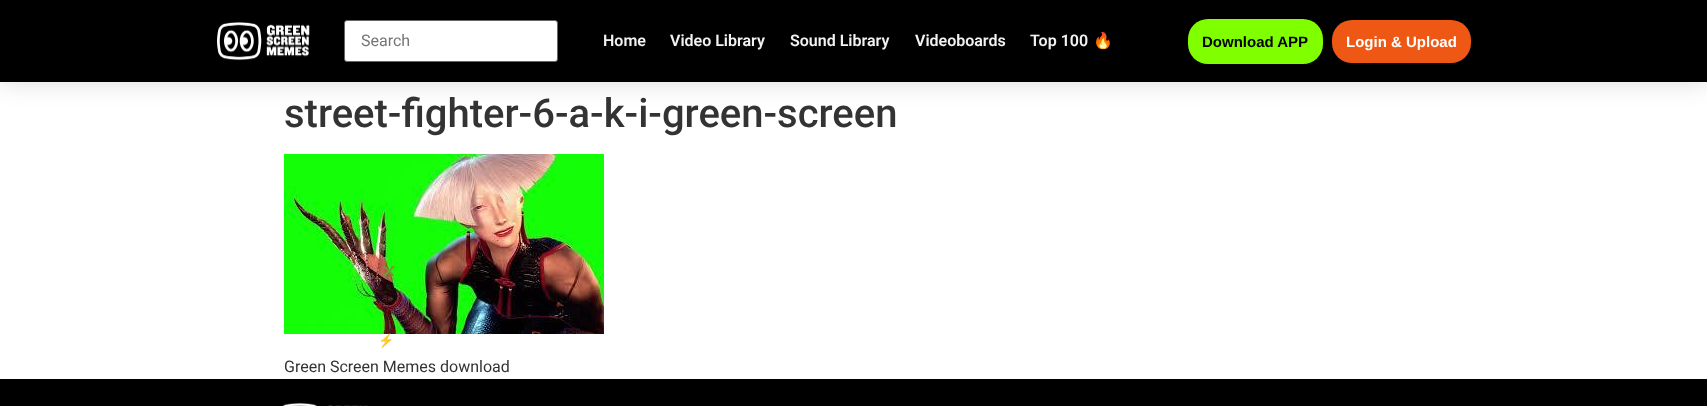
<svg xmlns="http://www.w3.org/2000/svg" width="1707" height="406">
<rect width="100%" height="100%" fill="#fff"/>
<rect width="1707" height="82" fill="#00000026" filter="blur(12px)"/>
<rect width="1707" height="82" fill="#000"/>
<image x="217" y="22" width="93" height="39" href="media/1.png"/>
<rect x="344.5" y="20.5" width="213" height="41" rx="2.5" fill="#fff" stroke="#666"/>
<text x="361" y="46" style="font-family:Roboto;font-size:16px;fill:#757575">Search</text>
<text x="603" y="46" style="font-family:Roboto;font-size:16px;font-weight:600;fill:#f2f2f2">Home</text>
<text x="670" y="46" style="font-family:Roboto;font-size:16px;font-weight:600;fill:#f2f2f2">Video Library</text>
<text x="790" y="46" style="font-family:Roboto;font-size:16px;font-weight:600;fill:#f2f2f2">Sound Library</text>
<text x="915" y="46" style="font-family:Roboto;font-size:16px;font-weight:600;fill:#f2f2f2">Videoboards</text>
<text x="1030" y="46" style="font-family:Roboto;font-size:16px;font-weight:600;fill:#f2f2f2">Top 100</text>
<text x="1093" y="46" style="font-family:Noto Color Emoji;font-size:16px;fill:#f2f2f2">🔥</text>
<rect x="1188" y="19" width="135" height="45" rx="20" fill="#80ff00"/>
<text x="1202" y="47" style="font-family:Liberation Sans;font-size:15px;font-weight:bold;fill:#000">Download APP</text>
<rect x="1332" y="20" width="139" height="43" rx="20" fill="#ee5814"/>
<text x="1346" y="47" style="font-family:Liberation Sans;font-size:15px;font-weight:bold;fill:#fff">Login &amp; Upload</text>
<text x="284" y="127" style="font-family:Roboto;font-size:40px;font-weight:500;fill:#333">street-fighter-6-a-k-i-green-screen</text>
<image x="284" y="154" width="320" height="180" href="media/2.png"/>
<text x="284" y="372" style="font-family:Roboto;font-size:16px;fill:#333">Green Screen Memes download</text>
<text x="381" y="278" style="font-family:DejaVu Sans;font-size:19px;fill:#749a31">✕</text>
<text x="378" y="345" style="font-family:Noto Color Emoji;font-size:13px;fill:#e8ede2">⚡</text>
<rect y="379" width="1707" height="27" fill="#000"/>
<image x="282" y="402" width="86" height="4" href="media/3.png"/>
</svg>
